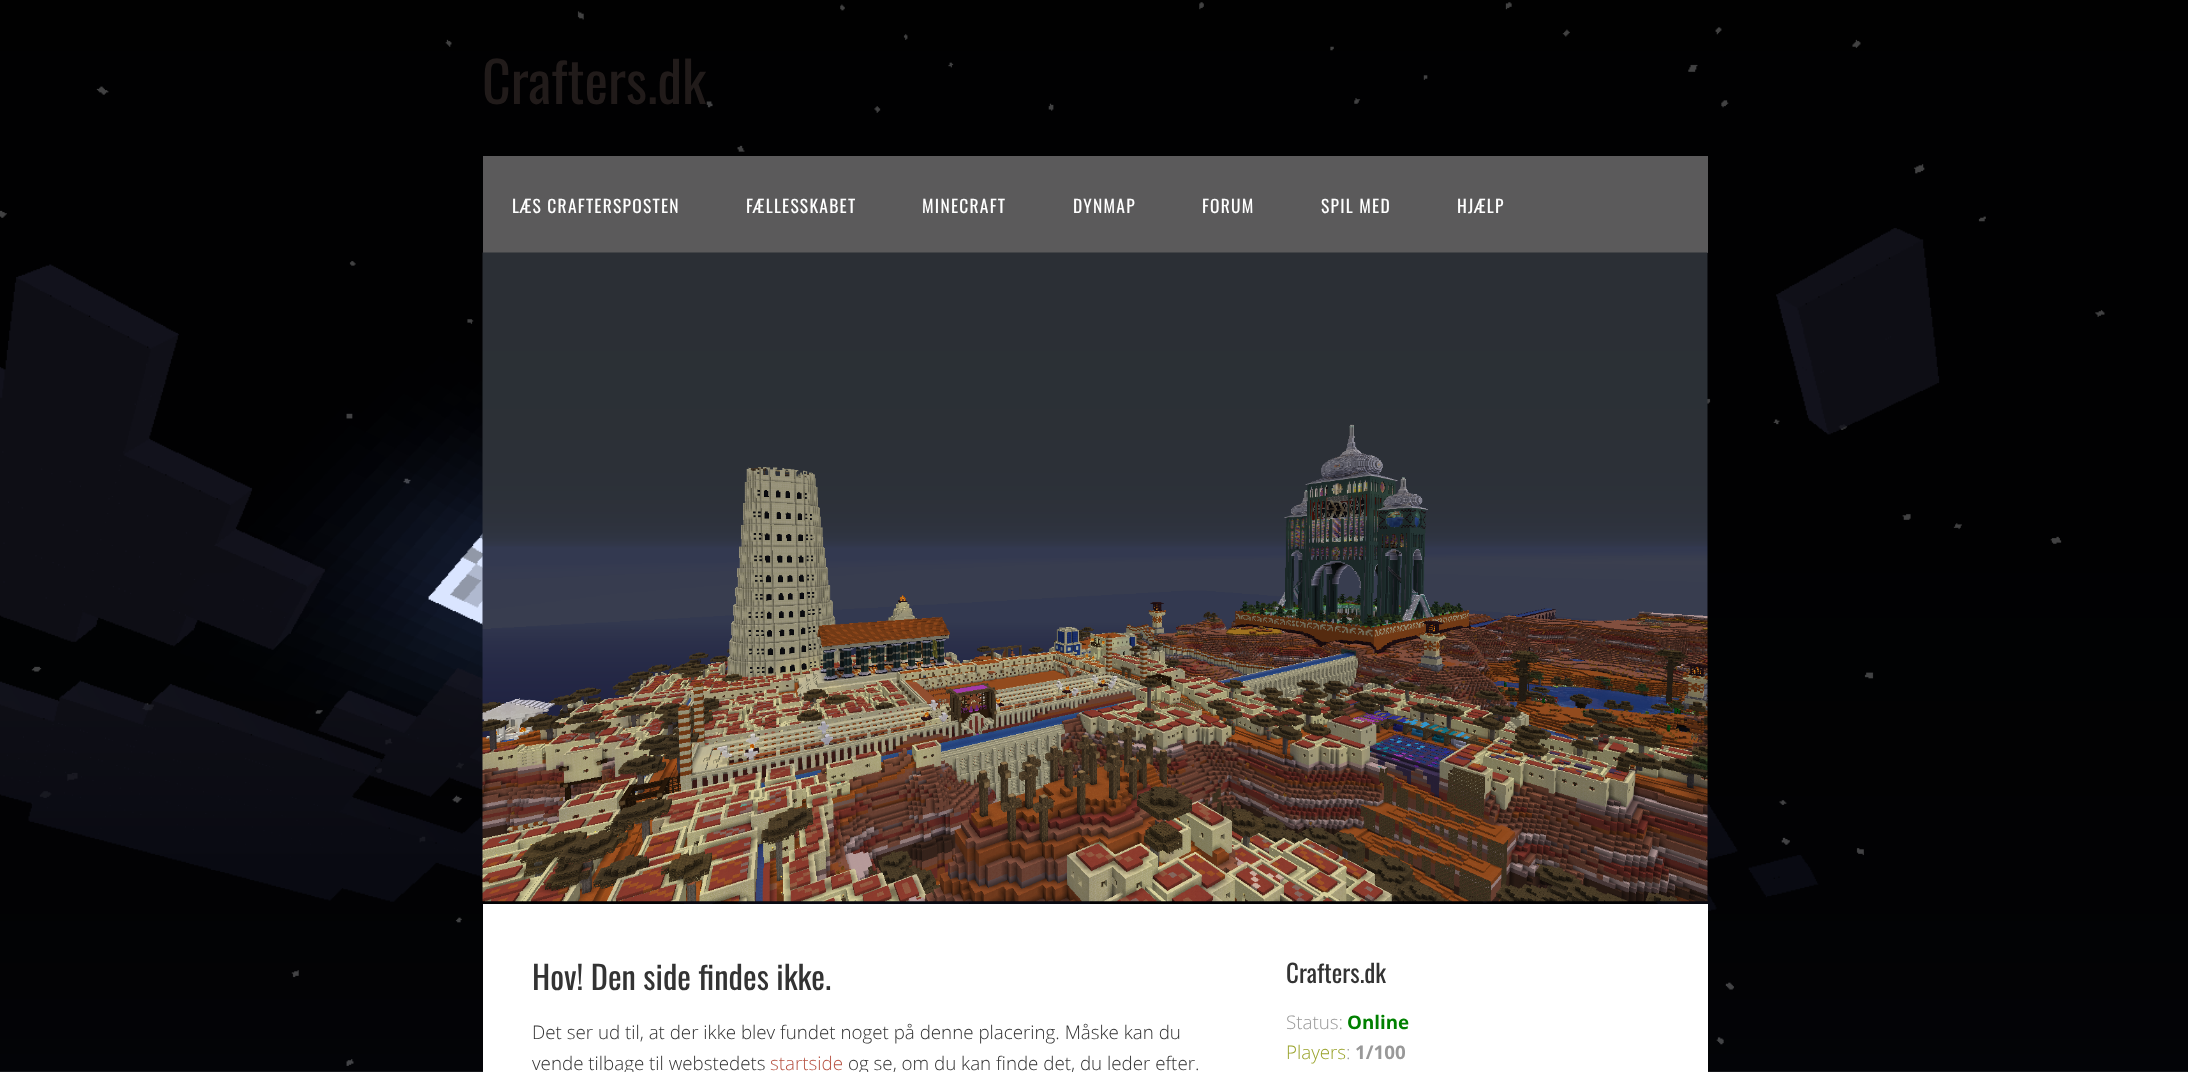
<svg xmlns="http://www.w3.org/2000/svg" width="2188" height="1072">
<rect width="100%" height="100%" fill="#fff"/>
<image x="0" y="0" width="2188" height="1072" href="media/1.png"/>
<text x="482" y="104" style="font-family:Oswald;font-size:56px;fill:#211b1a">Crafters.dk</text>
<rect x="483" y="156" width="1225" height="97" fill="#5b5a5b"/>
<text x="512" y="213" style="font-family:Oswald;font-size:17.5px;letter-spacing:1.25px;fill:#fff">LÆS CRAFTERSPOSTEN</text>
<text x="746" y="213" style="font-family:Oswald;font-size:17.5px;letter-spacing:1.25px;fill:#fff">FÆLLESSKABET</text>
<text x="922" y="213" style="font-family:Oswald;font-size:17.5px;letter-spacing:1.25px;fill:#fff">MINECRAFT</text>
<text x="1073" y="213" style="font-family:Oswald;font-size:17.5px;letter-spacing:1.25px;fill:#fff">DYNMAP</text>
<text x="1202" y="213" style="font-family:Oswald;font-size:17.5px;letter-spacing:1.25px;fill:#fff">FORUM</text>
<text x="1321" y="213" style="font-family:Oswald;font-size:17.5px;letter-spacing:1.25px;fill:#fff">SPIL MED</text>
<text x="1457" y="213" style="font-family:Oswald;font-size:17.5px;letter-spacing:1.25px;fill:#fff">HJÆLP</text>
<image x="482" y="252" width="1226" height="650" href="media/2.png"/>
<rect x="483" y="904" width="1225" height="168" fill="#fff"/>
<text x="532" y="990" style="font-family:Oswald;font-size:32.5px;fill:#333">Hov! Den side findes ikke.</text>
<text x="532" y="1039" style="font-family:Open Sans;font-size:18.75px;font-weight:300;fill:#333">Det ser ud til, at der ikke blev fundet noget på denne placering. Måske kan du</text>
<text x="532" y="1070" style="font-family:Open Sans;font-size:18.75px;font-weight:300;fill:#333">vende tilbage til webstedets</text>
<text x="770" y="1070" style="font-family:Open Sans;font-size:18.75px;font-weight:300;fill:#b75343">startside</text>
<text x="848" y="1070" style="font-family:Open Sans;font-size:18.75px;font-weight:300;fill:#333">og se, om du kan finde det, du leder efter.</text>
<text x="1286" y="983" style="font-family:Oswald;font-size:25px;fill:#333">Crafters.dk</text>
<text x="1286" y="1029" style="font-family:Open Sans;font-size:18.75px;font-weight:300;fill:#999">Status:</text>
<text x="1347" y="1029" style="font-family:Open Sans;font-size:18.75px;font-weight:bold;fill:#008000">Online</text>
<text x="1286" y="1059" style="font-family:Open Sans;font-size:18.75px;font-weight:300;fill:#9aa32c">Players</text>
<text x="1346" y="1059" style="font-family:Open Sans;font-size:18.75px;font-weight:300;fill:#999">:</text>
<text x="1355" y="1059" style="font-family:Open Sans;font-size:18.75px;font-weight:bold;fill:#999">1/100</text>
</svg>
